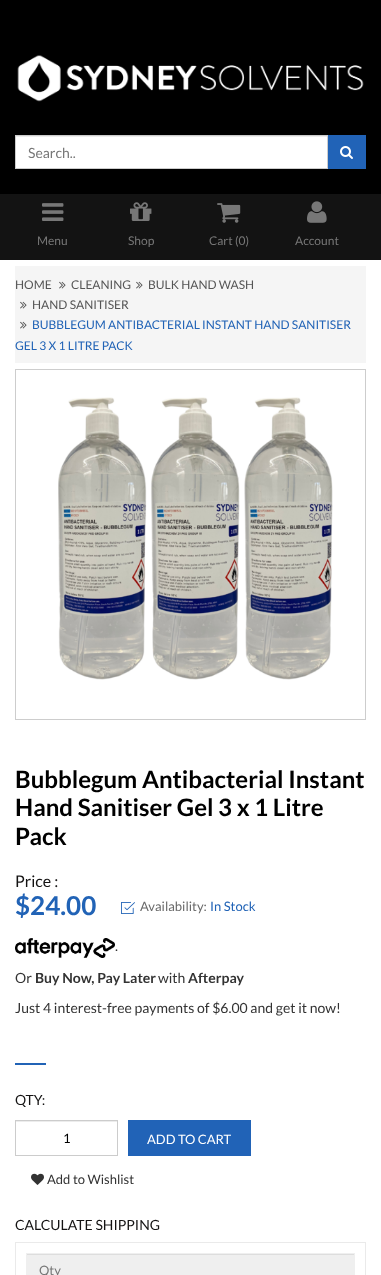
<svg xmlns="http://www.w3.org/2000/svg" width="381" height="1275">
<rect width="100%" height="100%" fill="#fff"/>
<rect width="381" height="194" fill="#000"/>
<image x="17" y="55" width="347" height="47" href="media/1.png"/>
<rect x="16" y="137" width="311" height="31" fill="#fff"/>
<rect x="16" y="136" width="311" height="1" fill="#ececec"/>
<rect x="15.5" y="135.5" width="312" height="33" fill="none" stroke="#ccc"/>
<text x="28" y="158" style="font-family:Lato;font-size:14px;fill:#777">Search..</text>
<rect x="328" y="135" width="38" height="34" fill="#2163b7"/>
<image x="340" y="146" width="13" height="13" href="media/2.png"/>
<rect y="194" width="381" height="66" fill="#131313"/>
<image x="42" y="203" width="22" height="18" href="media/3.png"/>
<text x="37" y="245" style="font-family:Lato;font-size:12px;fill:#777">Menu</text>
<image x="130" y="202" width="22" height="19" href="media/4.png"/>
<text x="128" y="245" style="font-family:Lato;font-size:12px;fill:#777">Shop</text>
<image x="217" y="203" width="24" height="20" href="media/5.png"/>
<text x="209" y="245" style="font-family:Lato;font-size:12px;fill:#777">Cart (0)</text>
<image x="307" y="201" width="20" height="22" href="media/6.png"/>
<text x="295" y="245" style="font-family:Lato;font-size:12px;fill:#777">Account</text>
<rect x="15" y="266" width="351" height="97" fill="#f5f5f5"/>
<text x="15" y="289" style="font-family:Lato;font-size:12px;fill:#555">HOME</text>
<image x="59" y="281" width="7" height="8" href="media/7.png"/>
<text x="71" y="289" style="font-family:Lato;font-size:12px;fill:#555">CLEANING</text>
<image x="136" y="281" width="7" height="8" href="media/7.png"/>
<text x="148" y="289" style="font-family:Lato;font-size:12px;fill:#555">BULK HAND WASH</text>
<image x="20" y="301" width="7" height="8" href="media/7.png"/>
<text x="32" y="309" style="font-family:Lato;font-size:12px;fill:#555">HAND SANITISER</text>
<image x="20" y="321" width="7" height="8" href="media/7.png"/>
<text x="32" y="329" style="font-family:Lato;font-size:12px;fill:#2163b6">BUBBLEGUM ANTIBACTERIAL INSTANT HAND SANITISER</text>
<text x="15" y="350" style="font-family:Lato;font-size:12px;fill:#2163b6">GEL 3 X 1 LITRE PACK</text>
<rect x="15.5" y="369.5" width="350" height="350" fill="none" stroke="#cdcdcd"/>
<image x="58" y="397" width="275" height="283" href="media/8.png"/>
<text x="15" y="788" style="font-family:Lato;font-size:24px;font-weight:bold;fill:#000">Bubblegum Antibacterial Instant</text>
<text x="15" y="816" style="font-family:Lato;font-size:24px;font-weight:bold;fill:#000">Hand Sanitiser Gel 3 x 1 Litre</text>
<text x="15" y="845" style="font-family:Lato;font-size:24px;font-weight:bold;fill:#000">Pack</text>
<text x="15" y="887" style="font-family:Lato;font-size:16px;fill:#141313">Price :</text>
<text x="15" y="915" style="font-family:Lato;font-size:26px;font-weight:bold;fill:#2163b6">$24.00</text>
<image x="121" y="902" width="14" height="12" href="media/9.png"/>
<text x="140" y="911" style="font-family:Lato;font-size:13px;fill:#6a6a6a">Availability:</text>
<text x="210" y="911" style="font-family:Lato;font-size:13px;fill:#2163b6">In Stock</text>
<image x="15" y="938" width="100" height="20" href="media/10.png"/>
<text x="115" y="951" style="font-family:Lato;font-size:14px;fill:#333">.</text>
<text x="15" y="983" style="font-family:Lato;font-size:14px;fill:#333">Or</text>
<text x="35" y="983" style="font-family:Lato;font-size:14px;font-weight:bold;fill:#333">Buy Now, Pay Later</text>
<text x="158" y="983" style="font-family:Lato;font-size:14px;fill:#333">with</text>
<text x="188" y="983" style="font-family:Lato;font-size:14px;font-weight:bold;fill:#333">Afterpay</text>
<text x="15" y="1013" style="font-family:Lato;font-size:14px;fill:#333">Just 4 interest-free payments of $6.00 and get it now!</text>
<rect x="15" y="1063" width="31" height="2" fill="#2163b6"/>
<text x="15" y="1105" style="font-family:Lato;font-size:14px;fill:#141313">QTY:</text>
<rect x="16" y="1121" width="101" height="1" fill="#ececec"/>
<rect x="15.5" y="1120.5" width="102" height="35" fill="none" stroke="#ccc"/>
<text x="63" y="1143" style="font-family:Lato;font-size:13px;fill:#000">1</text>
<rect x="128" y="1120" width="123" height="36" fill="#2163b7"/>
<text x="147" y="1144" style="font-family:Lato;font-size:13px;fill:#fff">ADD TO CART</text>
<image x="31" y="1173" width="13" height="12" href="media/11.png"/>
<text x="47" y="1184" style="font-family:Lato;font-size:13px;fill:#333">Add to Wishlist</text>
<text x="15" y="1230" style="font-family:Lato;font-size:14px;fill:#141313">CALCULATE SHIPPING</text>
<rect x="15.5" y="1242.5" width="350" height="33" fill="none" stroke="#eaeaea"/>
<rect x="26" y="1253" width="329" height="22" fill="#efefef"/>
<rect x="27" y="1254" width="327" height="1" fill="#ddd"/>
<text x="39" y="1275" style="font-family:Lato;font-size:13px;fill:#777">Qty</text>
</svg>
